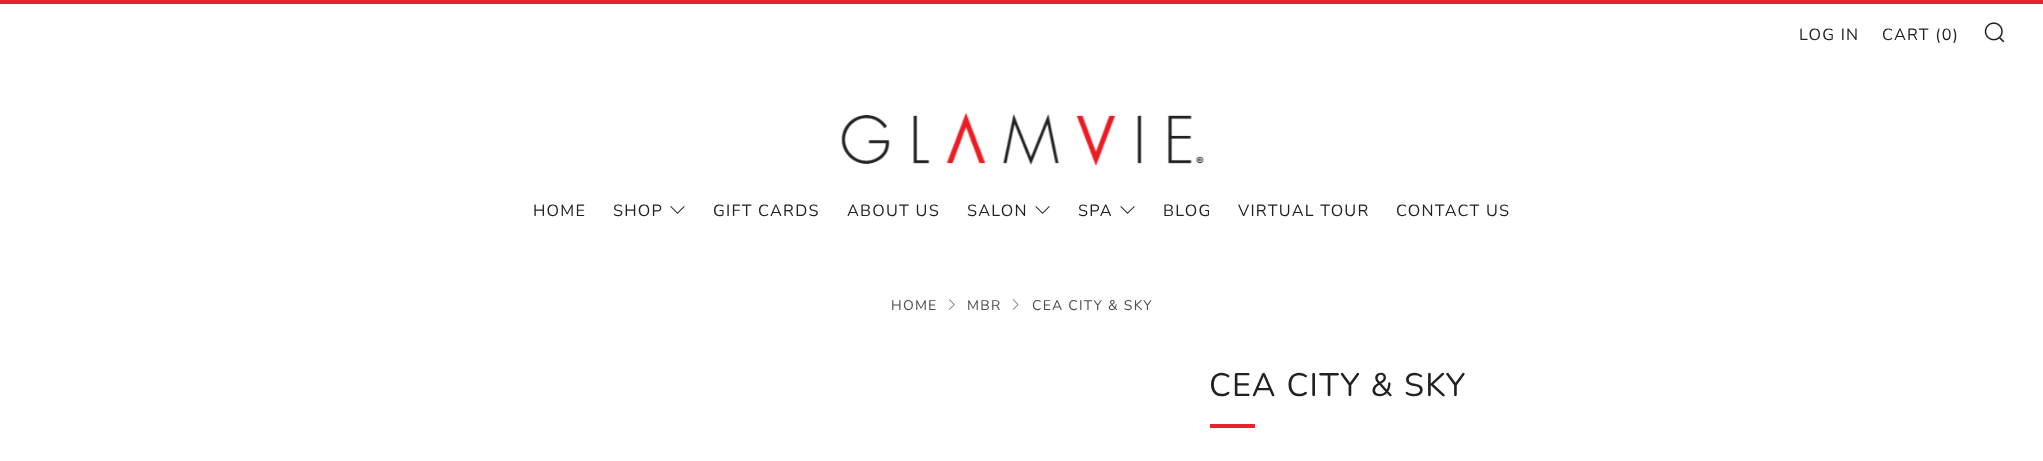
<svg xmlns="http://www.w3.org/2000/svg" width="2043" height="461">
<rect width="100%" height="100%" fill="#fff"/>
<rect width="2043" height="4" fill="#e7232d"/>
<text x="1799" y="40" style="font-family:Nunito;font-size:16.25px;letter-spacing:1.25px;fill:#212121">LOG IN</text>
<text x="1882" y="40" style="font-family:Nunito;font-size:16.25px;letter-spacing:1.25px;fill:#212121">CART (0)</text>
<image x="1984" y="22" width="21" height="21" href="media/1.png"/>
<text x="533" y="216" style="font-family:Nunito;font-size:16.25px;letter-spacing:1.25px;fill:#212121">HOME</text>
<text x="613" y="216" style="font-family:Nunito;font-size:16.25px;letter-spacing:1.25px;fill:#212121">SHOP</text>
<image x="670" y="206" width="15" height="8" href="media/2.png"/>
<text x="713" y="216" style="font-family:Nunito;font-size:16.25px;letter-spacing:1.25px;fill:#212121">GIFT CARDS</text>
<text x="847" y="216" style="font-family:Nunito;font-size:16.25px;letter-spacing:1.25px;fill:#212121">ABOUT US</text>
<text x="967" y="216" style="font-family:Nunito;font-size:16.25px;letter-spacing:1.25px;fill:#212121">SALON</text>
<image x="1035" y="206" width="15" height="8" href="media/2.png"/>
<text x="1078" y="216" style="font-family:Nunito;font-size:16.25px;letter-spacing:1.25px;fill:#212121">SPA</text>
<image x="1120" y="206" width="15" height="8" href="media/2.png"/>
<text x="1163" y="216" style="font-family:Nunito;font-size:16.25px;letter-spacing:1.25px;fill:#212121">BLOG</text>
<text x="1238" y="216" style="font-family:Nunito;font-size:16.25px;letter-spacing:1.25px;fill:#212121">VIRTUAL TOUR</text>
<text x="1396" y="216" style="font-family:Nunito;font-size:16.25px;letter-spacing:1.25px;fill:#212121">CONTACT US</text>
<image x="841" y="112" width="363" height="54" href="media/3.png"/>
<text x="891" y="310" style="font-family:Nunito;font-size:14px;letter-spacing:1.25px;fill:#4d4d4d">HOME</text>
<image x="949" y="299" width="6" height="11" href="media/4.png"/>
<text x="967" y="310" style="font-family:Nunito;font-size:14px;letter-spacing:1.25px;fill:#4d4d4d">MBR</text>
<image x="1012" y="299" width="7" height="11" href="media/5.png"/>
<text x="1032" y="310" style="font-family:Nunito;font-size:14px;letter-spacing:1.25px;fill:#4d4d4d">CEA CITY &amp; SKY</text>
<text x="1209" y="396" style="font-family:Nunito;font-size:32.5px;letter-spacing:1.25px;fill:#212121">CEA CITY &amp; SKY</text>
<rect x="1210" y="424" width="45" height="4" fill="#e7232d"/>
</svg>
